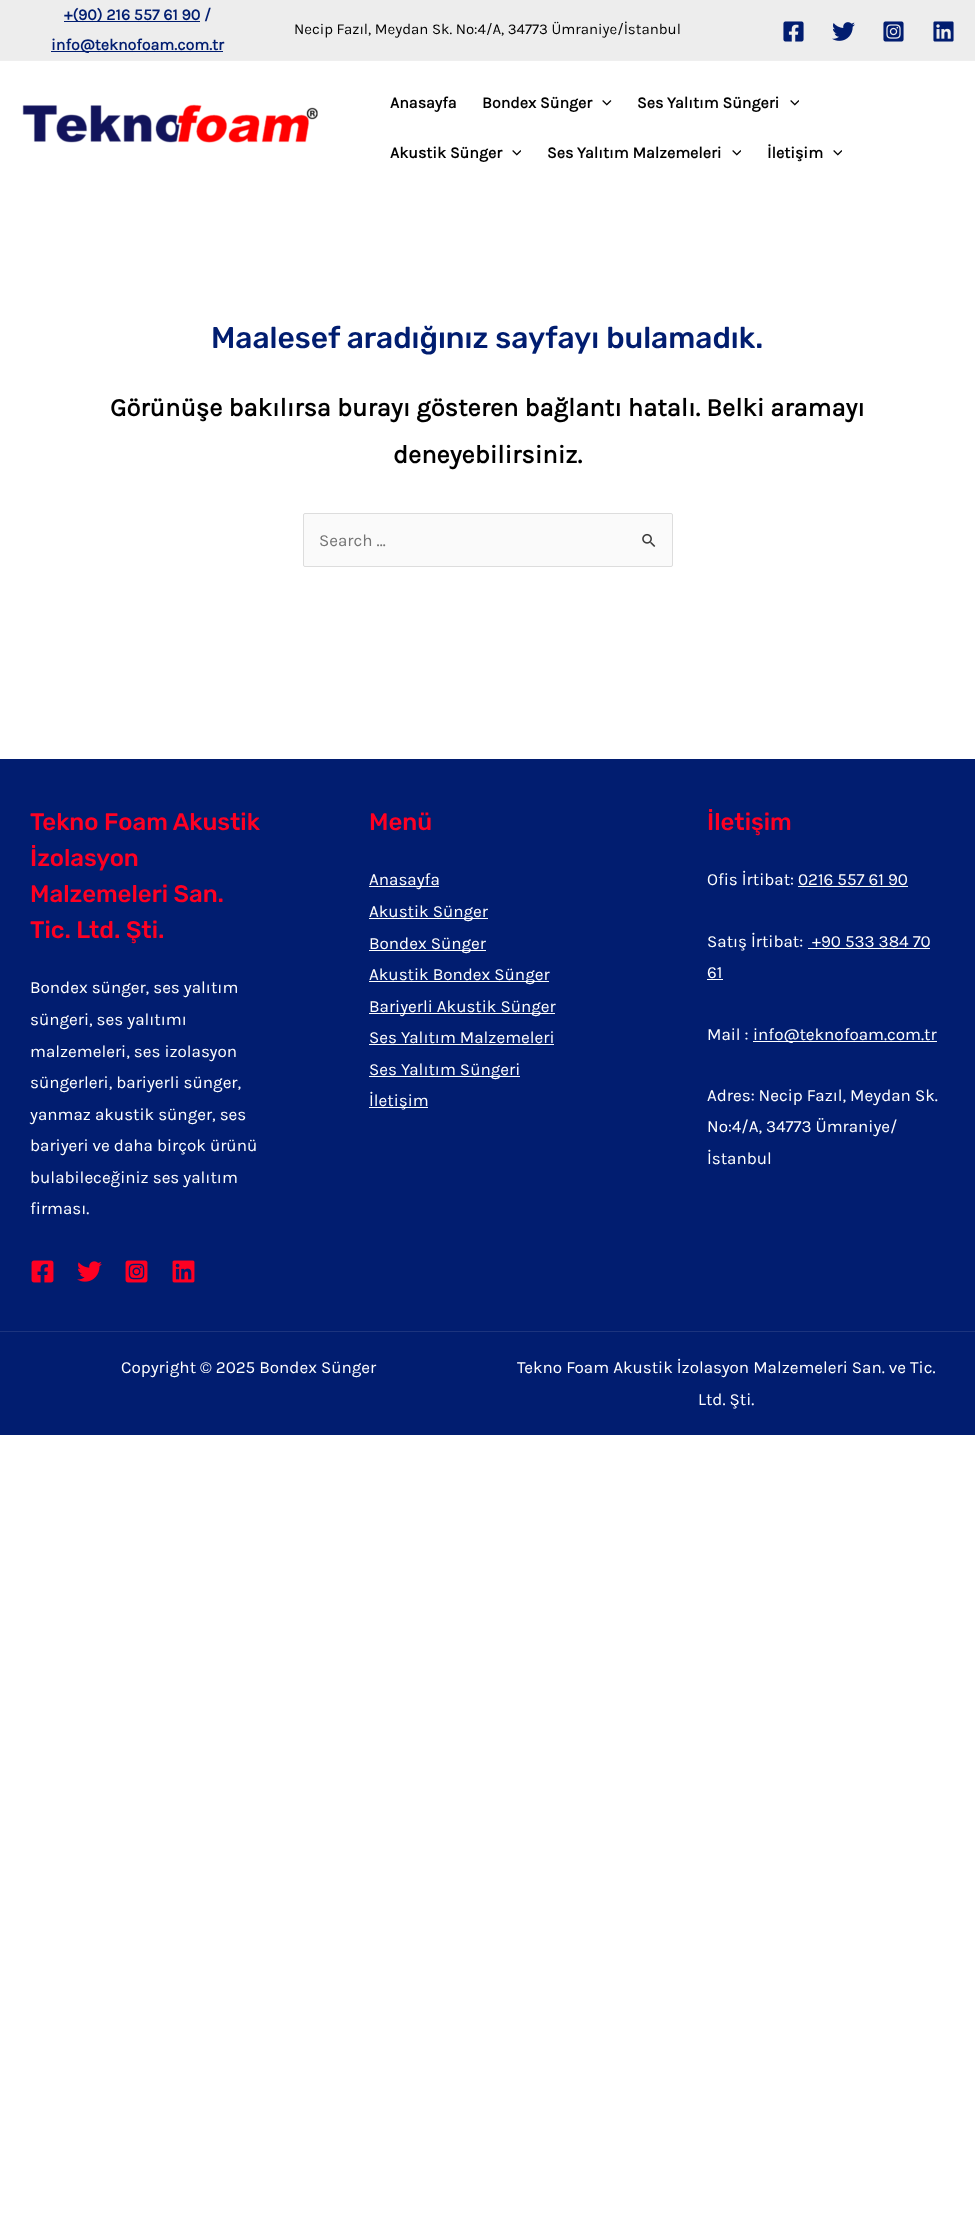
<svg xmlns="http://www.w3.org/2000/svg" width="975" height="2237">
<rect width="100%" height="100%" fill="#fff"/>
<rect width="975" height="60" fill="#ededed"/>
<rect y="60" width="975" height="1" fill="#efefef"/>
<rect x="64" y="21" width="136" height="1" fill="#011d70"/>
<text x="64" y="20" style="font-family:Karla;font-size:16px;font-weight:bold;fill:#011d70">+(90) 216 557 61 90 /</text>
<rect x="51" y="51" width="172" height="1" fill="#011d70"/>
<text x="51" y="50" style="font-family:Karla;font-size:16px;font-weight:bold;fill:#011d70">info@teknofoam.com.tr</text>
<text x="294" y="34" style="font-family:Karla;font-size:15px;fill:#000">Necip Fazıl, Meydan Sk. No:4/A, 34773 Ümraniye/İstanbul</text>
<image x="783" y="21" width="21" height="21" href="media/1.png"/>
<image x="832" y="22" width="23" height="19" href="media/2.png"/>
<image x="883" y="21" width="21" height="21" href="media/3.png"/>
<image x="933" y="21" width="21" height="21" href="media/4.png"/>
<image x="22" y="104" width="296" height="39" href="media/5.png"/>
<text x="390" y="108" style="font-family:Karla;font-size:16px;font-weight:bold;fill:#000">Anasayfa</text>
<text x="482" y="108" style="font-family:Karla;font-size:16px;font-weight:bold;fill:#000">Bondex Sünger</text>
<image x="602" y="100" width="10" height="6" href="media/6.png"/>
<text x="637" y="108" style="font-family:Karla;font-size:16px;font-weight:bold;fill:#000">Ses Yalıtım Süngeri</text>
<image x="790" y="100" width="9" height="6" href="media/7.png"/>
<text x="390" y="158" style="font-family:Karla;font-size:16px;font-weight:bold;fill:#000">Akustik Sünger</text>
<image x="512" y="150" width="9" height="6" href="media/7.png"/>
<text x="547" y="158" style="font-family:Karla;font-size:16px;font-weight:bold;fill:#000">Ses Yalıtım Malzemeleri</text>
<image x="732" y="150" width="9" height="6" href="media/7.png"/>
<text x="767" y="158" style="font-family:Karla;font-size:16px;font-weight:bold;fill:#000">İletişim</text>
<image x="833" y="150" width="9" height="6" href="media/7.png"/>
<text x="211" y="348" style="font-family:Rubik;font-size:30px;font-weight:500;fill:#011d70">Maalesef aradığınız sayfayı bulamadık.</text>
<text x="110" y="416" style="font-family:Karla;font-size:25.5px;font-weight:bold;fill:#000">Görünüşe bakılırsa burayı gösteren bağlantı hatalı. Belki aramayı</text>
<text x="393" y="463" style="font-family:Karla;font-size:25.5px;font-weight:bold;fill:#000">deneyebilirsiniz.</text>
<rect x="303.5" y="513.5" width="369" height="53" rx="1.5" fill="#fafafa" stroke="#ddd"/>
<text x="319" y="546" style="font-family:Karla;font-size:17px;fill:#757575">Search …</text>
<image x="642" y="533" width="14" height="14" href="media/8.png"/>
<rect y="759" width="975" height="572" fill="#011d70"/>
<text x="30" y="830" style="font-family:Rubik;font-size:24px;font-weight:500;fill:#fe0022">Tekno Foam Akustik</text>
<text x="30" y="866" style="font-family:Rubik;font-size:24px;font-weight:500;fill:#fe0022">İzolasyon</text>
<text x="30" y="902" style="font-family:Rubik;font-size:24px;font-weight:500;fill:#fe0022">Malzemeleri San.</text>
<text x="30" y="938" style="font-family:Rubik;font-size:24px;font-weight:500;fill:#fe0022">Tic. Ltd. Şti.</text>
<text x="30" y="993" style="font-family:Karla;font-size:17px;fill:#fff">Bondex sünger, ses yalıtım</text>
<text x="30" y="1025" style="font-family:Karla;font-size:17px;fill:#fff">süngeri, ses yalıtımı</text>
<text x="30" y="1057" style="font-family:Karla;font-size:17px;fill:#fff">malzemeleri, ses izolasyon</text>
<text x="30" y="1088" style="font-family:Karla;font-size:17px;fill:#fff">süngerleri, bariyerli sünger,</text>
<text x="30" y="1120" style="font-family:Karla;font-size:17px;fill:#fff">yanmaz akustik sünger, ses</text>
<text x="30" y="1151" style="font-family:Karla;font-size:17px;fill:#fff">bariyeri ve daha birçok ürünü</text>
<text x="30" y="1183" style="font-family:Karla;font-size:17px;fill:#fff">bulabileceğiniz ses yalıtım</text>
<text x="30" y="1214" style="font-family:Karla;font-size:17px;fill:#fff">firması.</text>
<image x="31" y="1260" width="23" height="23" href="media/9.png"/>
<image x="77" y="1261" width="25" height="21" href="media/10.png"/>
<image x="125" y="1260" width="23" height="23" href="media/11.png"/>
<image x="172" y="1260" width="23" height="23" href="media/12.png"/>
<text x="369" y="830" style="font-family:Rubik;font-size:24px;font-weight:500;fill:#fe0022">Menü</text>
<rect x="369" y="886" width="70" height="1" fill="#fff"/>
<text x="369" y="885" style="font-family:Karla;font-size:17px;fill:#fff">Anasayfa</text>
<rect x="369" y="918" width="119" height="1" fill="#fff"/>
<text x="369" y="917" style="font-family:Karla;font-size:17px;fill:#fff">Akustik Sünger</text>
<rect x="369" y="950" width="117" height="1" fill="#fff"/>
<text x="369" y="949" style="font-family:Karla;font-size:17px;fill:#fff">Bondex Sünger</text>
<rect x="369" y="981" width="180" height="1" fill="#fff"/>
<text x="369" y="980" style="font-family:Karla;font-size:17px;fill:#fff">Akustik Bondex Sünger</text>
<rect x="369" y="1013" width="186" height="1" fill="#fff"/>
<text x="369" y="1012" style="font-family:Karla;font-size:17px;fill:#fff">Bariyerli Akustik Sünger</text>
<text x="369" y="1043" style="font-family:Karla;font-size:17px;fill:#fff">Ses Yalıtım Malzemeleri</text>
<rect x="369" y="1044" width="185" height="1" fill="#fff"/>
<rect x="369" y="1076" width="151" height="1" fill="#fff"/>
<text x="369" y="1075" style="font-family:Karla;font-size:17px;fill:#fff">Ses Yalıtım Süngeri</text>
<rect x="369" y="1107" width="59" height="1" fill="#fff"/>
<text x="369" y="1106" style="font-family:Karla;font-size:17px;fill:#fff">İletişim</text>
<text x="707" y="830" style="font-family:Rubik;font-size:24px;font-weight:500;fill:#fe0022">İletişim</text>
<text x="707" y="885" style="font-family:Karla;font-size:17px;fill:#fff">Ofis İrtibat: 0216 557 61 90</text>
<rect x="798" y="886" width="110" height="1" fill="#fff"/>
<text x="707" y="947" style="font-family:Karla;font-size:17px;fill:#fff">Satış İrtibat:</text>
<text x="812" y="947" style="font-family:Karla;font-size:17px;fill:#fff">+90 533 384 70</text>
<rect x="808" y="948" width="122" height="1" fill="#fff"/>
<text x="707" y="978" style="font-family:Karla;font-size:17px;fill:#fff">61</text>
<rect x="707" y="979" width="16" height="1" fill="#fff"/>
<text x="707" y="1040" style="font-family:Karla;font-size:17px;fill:#fff">Mail :</text>
<rect x="753" y="1041" width="184" height="1" fill="#fff"/>
<text x="753" y="1040" style="font-family:Karla;font-size:17px;fill:#fff">info@teknofoam.com.tr</text>
<text x="707" y="1101" style="font-family:Karla;font-size:17px;fill:#fff">Adres: Necip Fazıl, Meydan Sk.</text>
<text x="707" y="1132" style="font-family:Karla;font-size:17px;fill:#fff">No:4/A, 34773 Ümraniye/</text>
<text x="707" y="1164" style="font-family:Karla;font-size:17px;fill:#fff">İstanbul</text>
<rect y="1332" width="975" height="103" fill="#011d70"/>
<rect y="1331" width="975" height="1" fill="#1c347e"/>
<text x="121" y="1373" style="font-family:Karla;font-size:17px;fill:#fff">Copyright © 2025 Bondex Sünger</text>
<text x="517" y="1373" style="font-family:Karla;font-size:17px;fill:#fff">Tekno Foam Akustik İzolasyon Malzemeleri San. ve Tic.</text>
<text x="698" y="1405" style="font-family:Karla;font-size:17px;fill:#fff">Ltd. Şti.</text>
</svg>
